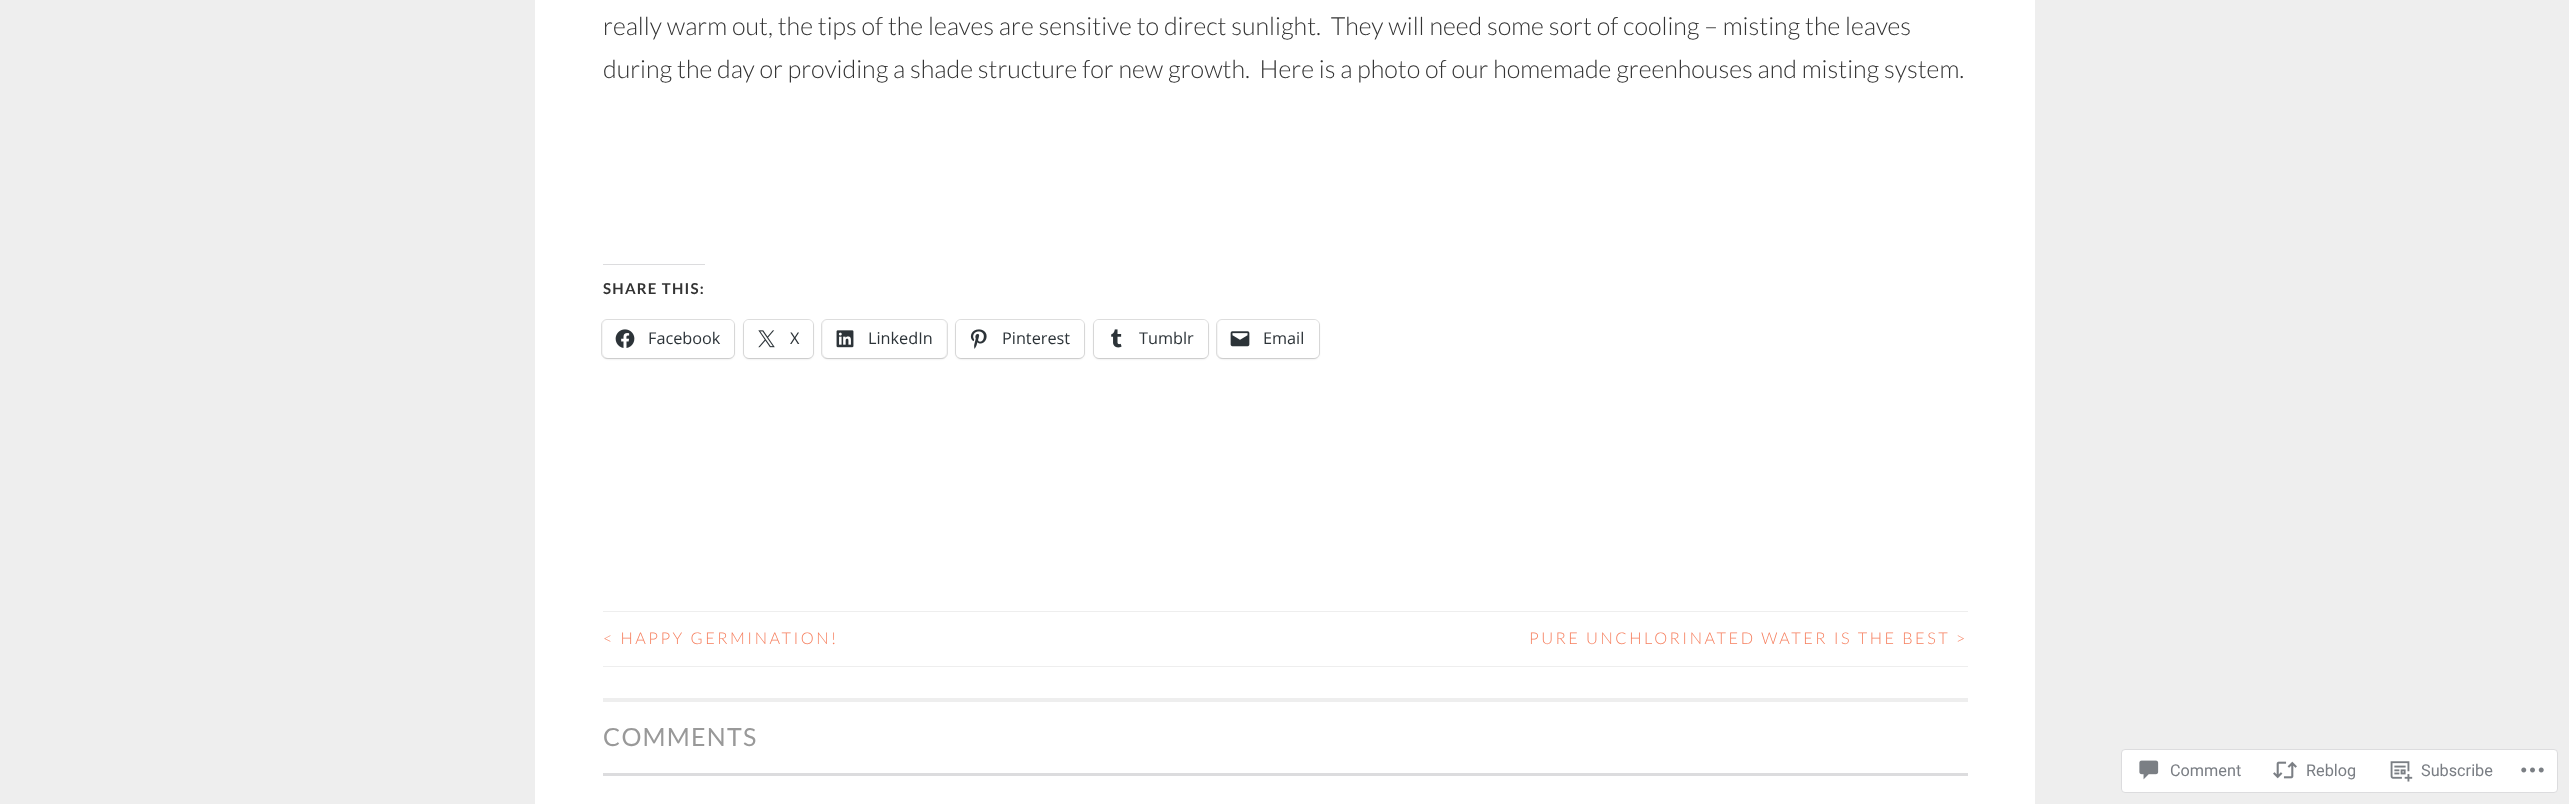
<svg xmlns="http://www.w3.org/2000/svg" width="2569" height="804">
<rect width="100%" height="100%" fill="#eee"/>
<rect x="535" width="1500" height="804" fill="#fff"/>
<text x="603" y="35" style="font-family:Lato;font-size:25px;font-weight:300;fill:#333" xml:space="preserve">really warm out, the tips of the leaves are sensitive to direct sunlight.  They will need some sort of cooling – misting the leaves</text>
<text x="603" y="78" style="font-family:Lato;font-size:25px;font-weight:300;fill:#333" xml:space="preserve">during the day or providing a shade structure for new growth.  Here is a photo of our homemade greenhouses and misting system.</text>
<rect x="603" y="264" width="102" height="1" fill="#dcdcde"/>
<text x="603" y="294" style="font-family:Lato;font-size:15px;font-weight:bold;letter-spacing:1.25px;fill:#333">SHARE THIS:</text>
<rect x="601.5" y="319.5" width="133" height="39" rx="5.5" fill="none" stroke="#e0e0e0"/>
<rect x="603" y="321" width="131" height="38" rx="5" fill="#0000001f" filter="blur(1px)"/>
<rect x="603" y="320" width="131" height="38" rx="5" fill="#fff"/>
<image x="615" y="329" width="20" height="19" href="media/1.png"/>
<text x="648" y="344" style="font-family:Open Sans;font-size:16.25px;fill:#2c3338">Facebook</text>
<rect x="743.5" y="319.5" width="70" height="39" rx="5.5" fill="none" stroke="#e0e0e0"/>
<rect x="744" y="321" width="69" height="38" rx="5" fill="#0000001f" filter="blur(1px)"/>
<rect x="744" y="320" width="69" height="38" rx="5" fill="#fff"/>
<image x="758" y="330" width="17" height="18" href="media/2.png"/>
<text x="790" y="344" style="font-family:Open Sans;font-size:16.25px;fill:#2c3338">X</text>
<rect x="821.5" y="319.5" width="126" height="39" rx="5.5" fill="none" stroke="#e0e0e0"/>
<rect x="823" y="321" width="123" height="38" rx="5" fill="#0000001f" filter="blur(1px)"/>
<rect x="823" y="320" width="123" height="38" rx="5" fill="#fff"/>
<image x="836" y="330" width="18" height="18" href="media/3.png"/>
<text x="868" y="344" style="font-family:Open Sans;font-size:16.25px;fill:#2c3338">LinkedIn</text>
<rect x="955.5" y="319.5" width="129" height="39" rx="5.5" fill="none" stroke="#e0e0e0"/>
<rect x="956" y="321" width="128" height="38" rx="5" fill="#0000001f" filter="blur(1px)"/>
<rect x="956" y="320" width="128" height="38" rx="5" fill="#fff"/>
<image x="970" y="329" width="17" height="20" href="media/4.png"/>
<text x="1002" y="344" style="font-family:Open Sans;font-size:16.25px;fill:#2c3338">Pinterest</text>
<rect x="1093.5" y="319.5" width="115" height="39" rx="5.5" fill="none" stroke="#e0e0e0"/>
<rect x="1094" y="321" width="114" height="38" rx="5" fill="#0000001f" filter="blur(1px)"/>
<rect x="1094" y="320" width="114" height="38" rx="5" fill="#fff"/>
<image x="1111" y="329" width="11" height="19" href="media/5.png"/>
<text x="1139" y="344" style="font-family:Open Sans;font-size:16.25px;fill:#2c3338">Tumblr</text>
<rect x="1216.5" y="319.5" width="103" height="39" rx="5.5" fill="none" stroke="#e0e0e0"/>
<rect x="1218" y="321" width="101" height="38" rx="5" fill="#0000001f" filter="blur(1px)"/>
<rect x="1218" y="320" width="101" height="38" rx="5" fill="#fff"/>
<image x="1230" y="331" width="20" height="16" href="media/6.png"/>
<text x="1263" y="344" style="font-family:Open Sans;font-size:16.25px;fill:#2c3338">Email</text>
<rect x="603" y="611" width="1365" height="1" fill="#eee"/>
<rect x="603" y="666" width="1365" height="1" fill="#eee"/>
<text x="603" y="644" style="font-family:Lato;font-size:16.25px;font-weight:300;letter-spacing:2.5px;fill:#f68060">&lt; HAPPY GERMINATION!</text>
<text x="1529" y="644" style="font-family:Lato;font-size:16.25px;font-weight:300;letter-spacing:2.5px;fill:#f68060">PURE UNCHLORINATED WATER IS THE BEST &gt;</text>
<rect x="603" y="698" width="1365" height="4" fill="#eee"/>
<text x="603" y="746" style="font-family:Lato;font-size:25px;letter-spacing:1.25px;fill:#999">COMMENTS</text>
<rect x="603" y="773" width="1365" height="3" fill="#dcdcde"/>
<rect x="2121.5" y="749.5" width="436" height="43" rx="3.5" fill="#fff" stroke="#dcdcde"/>
<image x="2139" y="760" width="20" height="20" href="media/7.png"/>
<text x="2170" y="776" style="font-family:Roboto;font-size:16.25px;fill:#7a7e84">Comment</text>
<image x="2273" y="761" width="24" height="18" href="media/8.png"/>
<text x="2306" y="776" style="font-family:Roboto;font-size:16.25px;fill:#7a7e84">Reblog</text>
<image x="2390" y="761" width="23" height="21" href="media/9.png"/>
<text x="2421" y="776" style="font-family:Roboto;font-size:16.25px;fill:#7a7e84">Subscribe</text>
<image x="2521" y="767" width="23" height="6" href="media/10.png"/>
</svg>
